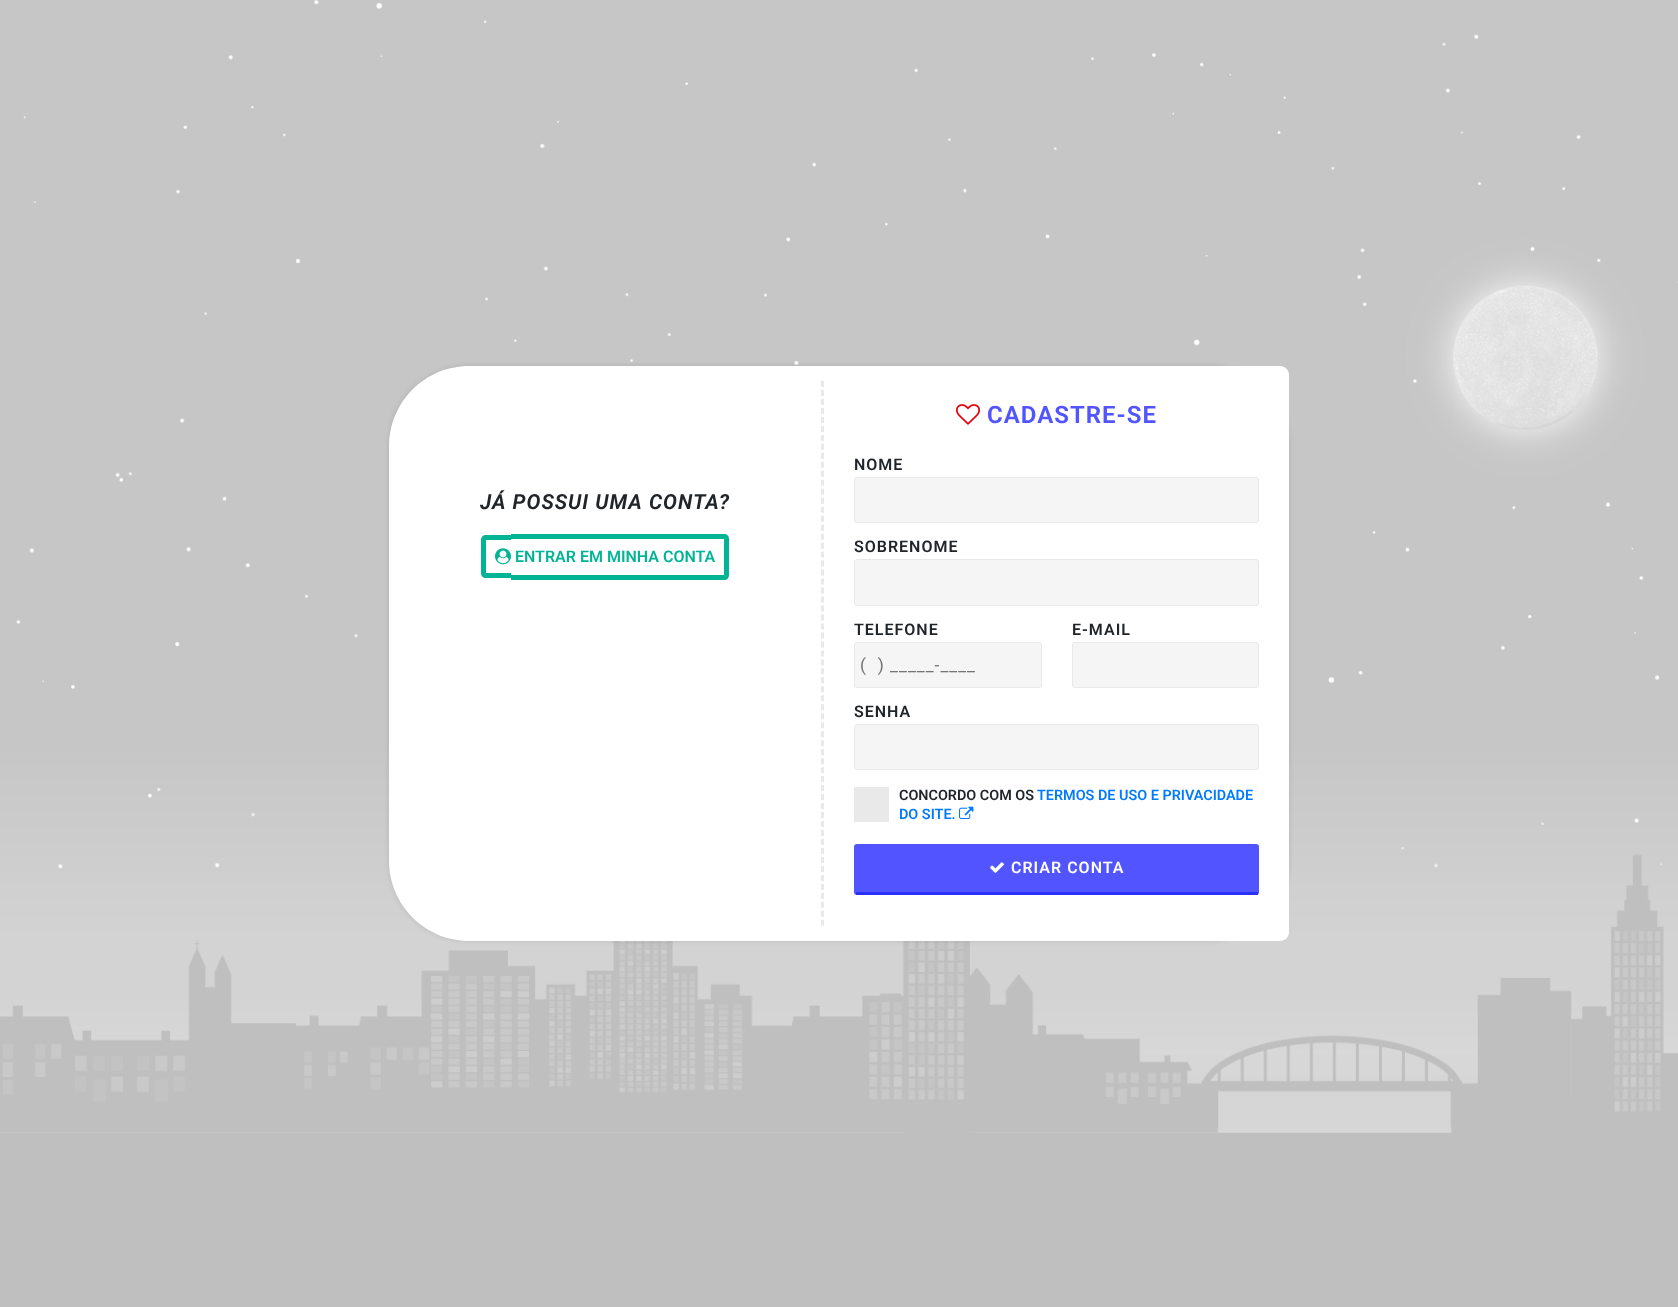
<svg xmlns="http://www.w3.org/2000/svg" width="1678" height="1307">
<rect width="100%" height="100%" fill="#fff"/>
<image x="0" y="0" width="1678" height="1307" href="media/1.png"/>
<rect x="394" y="371" width="890" height="565" rx="75" fill="#00000080" filter="blur(4px)"/>
<path d="M469 366h811c5 0 9 4 9 9v557c0 5-4 9-9 9h-811c-44 0-80-36-80-80v-415c0-44 36-80 80-80z" fill="#fff"/>
<path d="M822.5 381v545" fill="none" stroke="#e9e9e9" stroke-width="3" stroke-dasharray="6 2.98"/>
<text x="480" y="509" style="font-family:Roboto;font-size:20.75px;font-weight:600;font-style:italic;letter-spacing:1px;fill:#212529">JÁ POSSUI UMA CONTA?</text>
<path d="M486 535h25v43h-25c-3 0-5-2-5-5v-33c0-3 2-5 5-5zm0 5h25v33h-25z" fill="#00b495" fill-rule="evenodd"/>
<path d="M511 534h213c3 0 5 2 5 5v36c0 3-2 5-5 5h-213zm0 5h213v36h-213z" fill="#00b495" fill-rule="evenodd"/>
<image x="495" y="548" width="16" height="17" href="media/2.png"/>
<text x="515" y="562" style="font-family:Roboto;font-size:16px;font-weight:600;fill:#00b495">ENTRAR EM MINHA CONTA</text>
<image x="956" y="404" width="24" height="21" href="media/3.png"/>
<text x="987" y="423" style="font-family:'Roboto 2';font-size:24px;font-weight:600;letter-spacing:1px;fill:#5255ff">CADASTRE-SE</text>
<text x="854" y="470" style="font-family:Roboto;font-size:16px;font-weight:600;letter-spacing:1px;fill:#212529">NOME</text>
<rect x="854.5" y="477.5" width="404" height="45" rx="2.5" fill="#f5f5f5" stroke="#e9e9e9"/>
<text x="854" y="552" style="font-family:Roboto;font-size:16px;font-weight:600;letter-spacing:1px;fill:#212529">SOBRENOME</text>
<rect x="854.5" y="559.5" width="404" height="46" rx="2.5" fill="#f5f5f5" stroke="#e9e9e9"/>
<text x="854" y="635" style="font-family:Roboto;font-size:16px;font-weight:600;letter-spacing:1px;fill:#212529">TELEFONE</text>
<rect x="854.5" y="642.5" width="187" height="45" rx="2.5" fill="#f5f5f5" stroke="#e9e9e9"/>
<text x="860" y="671" style="font-family:Roboto;font-size:17.5px;letter-spacing:1px;fill:#757575" xml:space="preserve">(  ) _____-____</text>
<text x="1072" y="635" style="font-family:Roboto;font-size:16px;font-weight:600;letter-spacing:1px;fill:#212529">E-MAIL</text>
<rect x="1072.5" y="642.5" width="186" height="45" rx="2.5" fill="#f5f5f5" stroke="#e9e9e9"/>
<text x="854" y="717" style="font-family:Roboto;font-size:16px;font-weight:600;letter-spacing:1px;fill:#212529">SENHA</text>
<rect x="854.5" y="724.5" width="404" height="45" rx="2.5" fill="#f5f5f5" stroke="#e9e9e9"/>
<rect x="854" y="787" width="35" height="35" fill="#e9e9e9"/>
<text x="899" y="800" style="font-family:Roboto;font-size:14.4px;font-weight:600;fill:#212529">CONCORDO COM OS</text>
<text x="1037" y="800" style="font-family:Roboto;font-size:14.4px;font-weight:600;fill:#007bff">TERMOS DE USO E PRIVACIDADE</text>
<text x="899" y="819" style="font-family:Roboto;font-size:14.4px;font-weight:600;fill:#007bff">DO SITE.</text>
<image x="959" y="806" width="15" height="13" href="media/4.png"/>
<rect x="854" y="844" width="405" height="51" rx="3" fill="#5255ff"/>
<rect x="856" y="892" width="402" height="3" fill="#2b30ff"/>
<image x="990" y="862" width="14" height="11" href="media/5.png"/>
<text x="1011" y="873" style="font-family:Roboto;font-size:16px;font-weight:600;letter-spacing:1px;fill:#fff">CRIAR CONTA</text>
</svg>
